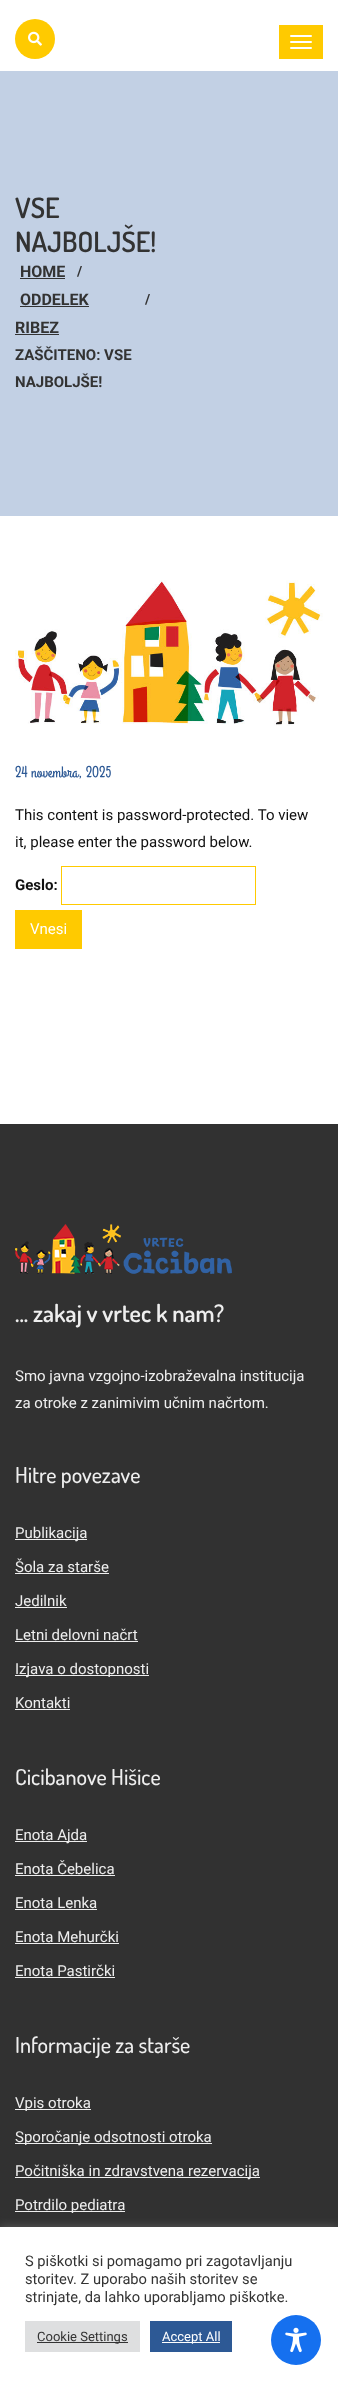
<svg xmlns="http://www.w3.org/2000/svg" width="338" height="2382">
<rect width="100%" height="100%" fill="#fff"/>
<circle cx="35" cy="39" r="20" fill="#ffca00"/>
<image x="28" y="31" width="14" height="15" href="media/1.png"/>
<rect x="279" y="25" width="44" height="34" fill="#ffca00"/>
<rect x="290" y="35" width="22" height="2" rx="1" fill="#fff"/>
<rect x="290" y="41" width="22" height="2" rx="1" fill="#fff"/>
<rect x="290" y="47" width="22" height="2" rx="1" fill="#fff"/>
<rect y="71" width="338" height="445" fill="#c2d0e4"/>
<text x="15" y="218" style="font-family:Dosis;font-size:28px;font-weight:600;fill:#333">VSE</text>
<text x="15" y="252" style="font-family:Dosis;font-size:28px;font-weight:600;fill:#333">NAJBOLJŠE!</text>
<text x="20" y="277" style="font-family:Roboto;font-size:16px;font-weight:bold;fill:#333">HOME</text>
<rect x="20" y="278" width="45" height="1" fill="#333"/>
<text x="77" y="276" style="font-family:Roboto;font-size:14px;font-weight:bold;fill:#333">/</text>
<text x="20" y="305" style="font-family:Roboto;font-size:16px;font-weight:bold;fill:#333">ODDELEK</text>
<rect x="20" y="306" width="69" height="1" fill="#333"/>
<text x="145" y="304" style="font-family:Roboto;font-size:14px;font-weight:bold;fill:#333">/</text>
<text x="15" y="333" style="font-family:Roboto;font-size:16px;font-weight:bold;fill:#333">RIBEZ</text>
<rect x="15" y="334" width="44" height="1" fill="#333"/>
<text x="15" y="360" style="font-family:Roboto;font-size:15px;font-weight:bold;fill:#333">ZAŠČITENO: VSE</text>
<text x="15" y="387" style="font-family:Roboto;font-size:15px;font-weight:bold;fill:#333">NAJBOLJŠE!</text>
<image x="15" y="580" width="308" height="146" href="media/2.png"/>
<text x="15" y="777" style="font-family:Grand Hotel;font-size:16px;fill:#2d5995">24 novembra, 2025</text>
<text x="15" y="820" style="font-family:Roboto;font-size:15px;fill:#111">This content is password-protected. To view</text>
<text x="15" y="847" style="font-family:Roboto;font-size:15px;fill:#111">it, please enter the password below.</text>
<text x="15" y="890" style="font-family:Roboto;font-size:15px;font-weight:bold;fill:#111">Geslo:</text>
<rect x="61.5" y="866.5" width="194" height="38" fill="none" stroke="#ffca00"/>
<rect x="15" y="910" width="67" height="39" fill="#ffca00"/>
<text x="30" y="934" style="font-family:Roboto;font-size:15px;fill:#fff">Vnesi</text>
<rect y="1124" width="338" height="1103" fill="#313131"/>
<image x="15" y="1224" width="217" height="50" href="media/3.png"/>
<text x="15" y="1322" style="font-family:Dosis;font-size:24px;font-weight:600;fill:#eee">... zakaj v vrtec k nam?</text>
<text x="15" y="1381" style="font-family:Roboto;font-size:15px;fill:#eee">Smo javna vzgojno-izobraževalna institucija</text>
<text x="15" y="1408" style="font-family:Roboto;font-size:15px;fill:#eee">za otroke z zanimivim učnim načrtom.</text>
<text x="15" y="1483" style="font-family:Dosis;font-size:22px;font-weight:500;fill:#eee">Hitre povezave</text>
<rect x="15" y="1539" width="72" height="1" fill="#eee"/>
<text x="15" y="1538" style="font-family:Roboto;font-size:15px;fill:#eee">Publikacija</text>
<text x="15" y="1572" style="font-family:Roboto;font-size:15px;fill:#eee">Šola za starše</text>
<rect x="15" y="1573" width="94" height="1" fill="#eee"/>
<text x="15" y="1606" style="font-family:Roboto;font-size:15px;fill:#eee">Jedilnik</text>
<rect x="15" y="1607" width="52" height="1" fill="#eee"/>
<text x="15" y="1640" style="font-family:Roboto;font-size:15px;fill:#eee">Letni delovni načrt</text>
<rect x="15" y="1641" width="123" height="1" fill="#eee"/>
<rect x="15" y="1675" width="134" height="1" fill="#eee"/>
<text x="15" y="1674" style="font-family:Roboto;font-size:15px;fill:#eee">Izjava o dostopnosti</text>
<text x="15" y="1708" style="font-family:Roboto;font-size:15px;fill:#eee">Kontakti</text>
<rect x="15" y="1709" width="55" height="1" fill="#eee"/>
<text x="15" y="1785" style="font-family:Dosis;font-size:22px;font-weight:500;fill:#eee">Cicibanove Hišice</text>
<rect x="15" y="1841" width="72" height="1" fill="#eee"/>
<text x="15" y="1840" style="font-family:Roboto;font-size:15px;fill:#eee">Enota Ajda</text>
<text x="15" y="1874" style="font-family:Roboto;font-size:15px;fill:#eee">Enota Čebelica</text>
<rect x="15" y="1875" width="100" height="1" fill="#eee"/>
<text x="15" y="1908" style="font-family:Roboto;font-size:15px;fill:#eee">Enota Lenka</text>
<rect x="15" y="1909" width="82" height="1" fill="#eee"/>
<text x="15" y="1942" style="font-family:Roboto;font-size:15px;fill:#eee">Enota Mehurčki</text>
<rect x="15" y="1943" width="104" height="1" fill="#eee"/>
<text x="15" y="1976" style="font-family:Roboto;font-size:15px;fill:#eee">Enota Pastirčki</text>
<rect x="15" y="1977" width="100" height="1" fill="#eee"/>
<text x="15" y="2053" style="font-family:Dosis;font-size:22px;font-weight:500;fill:#eee">Informacije za starše</text>
<rect x="15" y="2109" width="76" height="1" fill="#eee"/>
<text x="15" y="2108" style="font-family:Roboto;font-size:15px;fill:#eee">Vpis otroka</text>
<rect x="15" y="2143" width="197" height="1" fill="#eee"/>
<text x="15" y="2142" style="font-family:Roboto;font-size:15px;fill:#eee">Sporočanje odsotnosti otroka</text>
<rect x="15" y="2177" width="245" height="1" fill="#eee"/>
<text x="15" y="2176" style="font-family:Roboto;font-size:15px;fill:#eee">Počitniška in zdravstvena rezervacija</text>
<rect x="15" y="2211" width="110" height="1" fill="#eee"/>
<text x="15" y="2210" style="font-family:Roboto;font-size:15px;fill:#eee">Potrdilo pediatra</text>
<rect y="2226" width="338" height="155" fill="#acabab4d" filter="blur(5px)"/>
<rect y="2227" width="338" height="155" fill="#fff"/>
<text x="25" y="2266" style="font-family:Roboto;font-size:14.7px;fill:#333">S piškotki si pomagamo pri zagotavljanju</text>
<text x="25" y="2284" style="font-family:Roboto;font-size:14.7px;fill:#333">storitev. Z uporabo naših storitev se</text>
<text x="25" y="2302" style="font-family:Roboto;font-size:14.7px;fill:#333">strinjate, da lahko uporabljamo piškotke.</text>
<rect x="25" y="2321" width="115" height="31" fill="#dedfe0"/>
<rect x="37" y="2342" width="91" height="1" fill="#333"/>
<text x="37" y="2341" style="font-family:Roboto;font-size:13px;fill:#333">Cookie Settings</text>
<rect x="150" y="2321" width="82" height="31" fill="#2d5995"/>
<rect x="162" y="2342" width="58" height="1" fill="#fff"/>
<text x="162" y="2341" style="font-family:Roboto;font-size:13px;fill:#fff">Accept All</text>
<circle cx="296" cy="2340" r="25" fill="#1570ef"/>
<image x="285" y="2327" width="22" height="26" href="media/4.png"/>
</svg>
